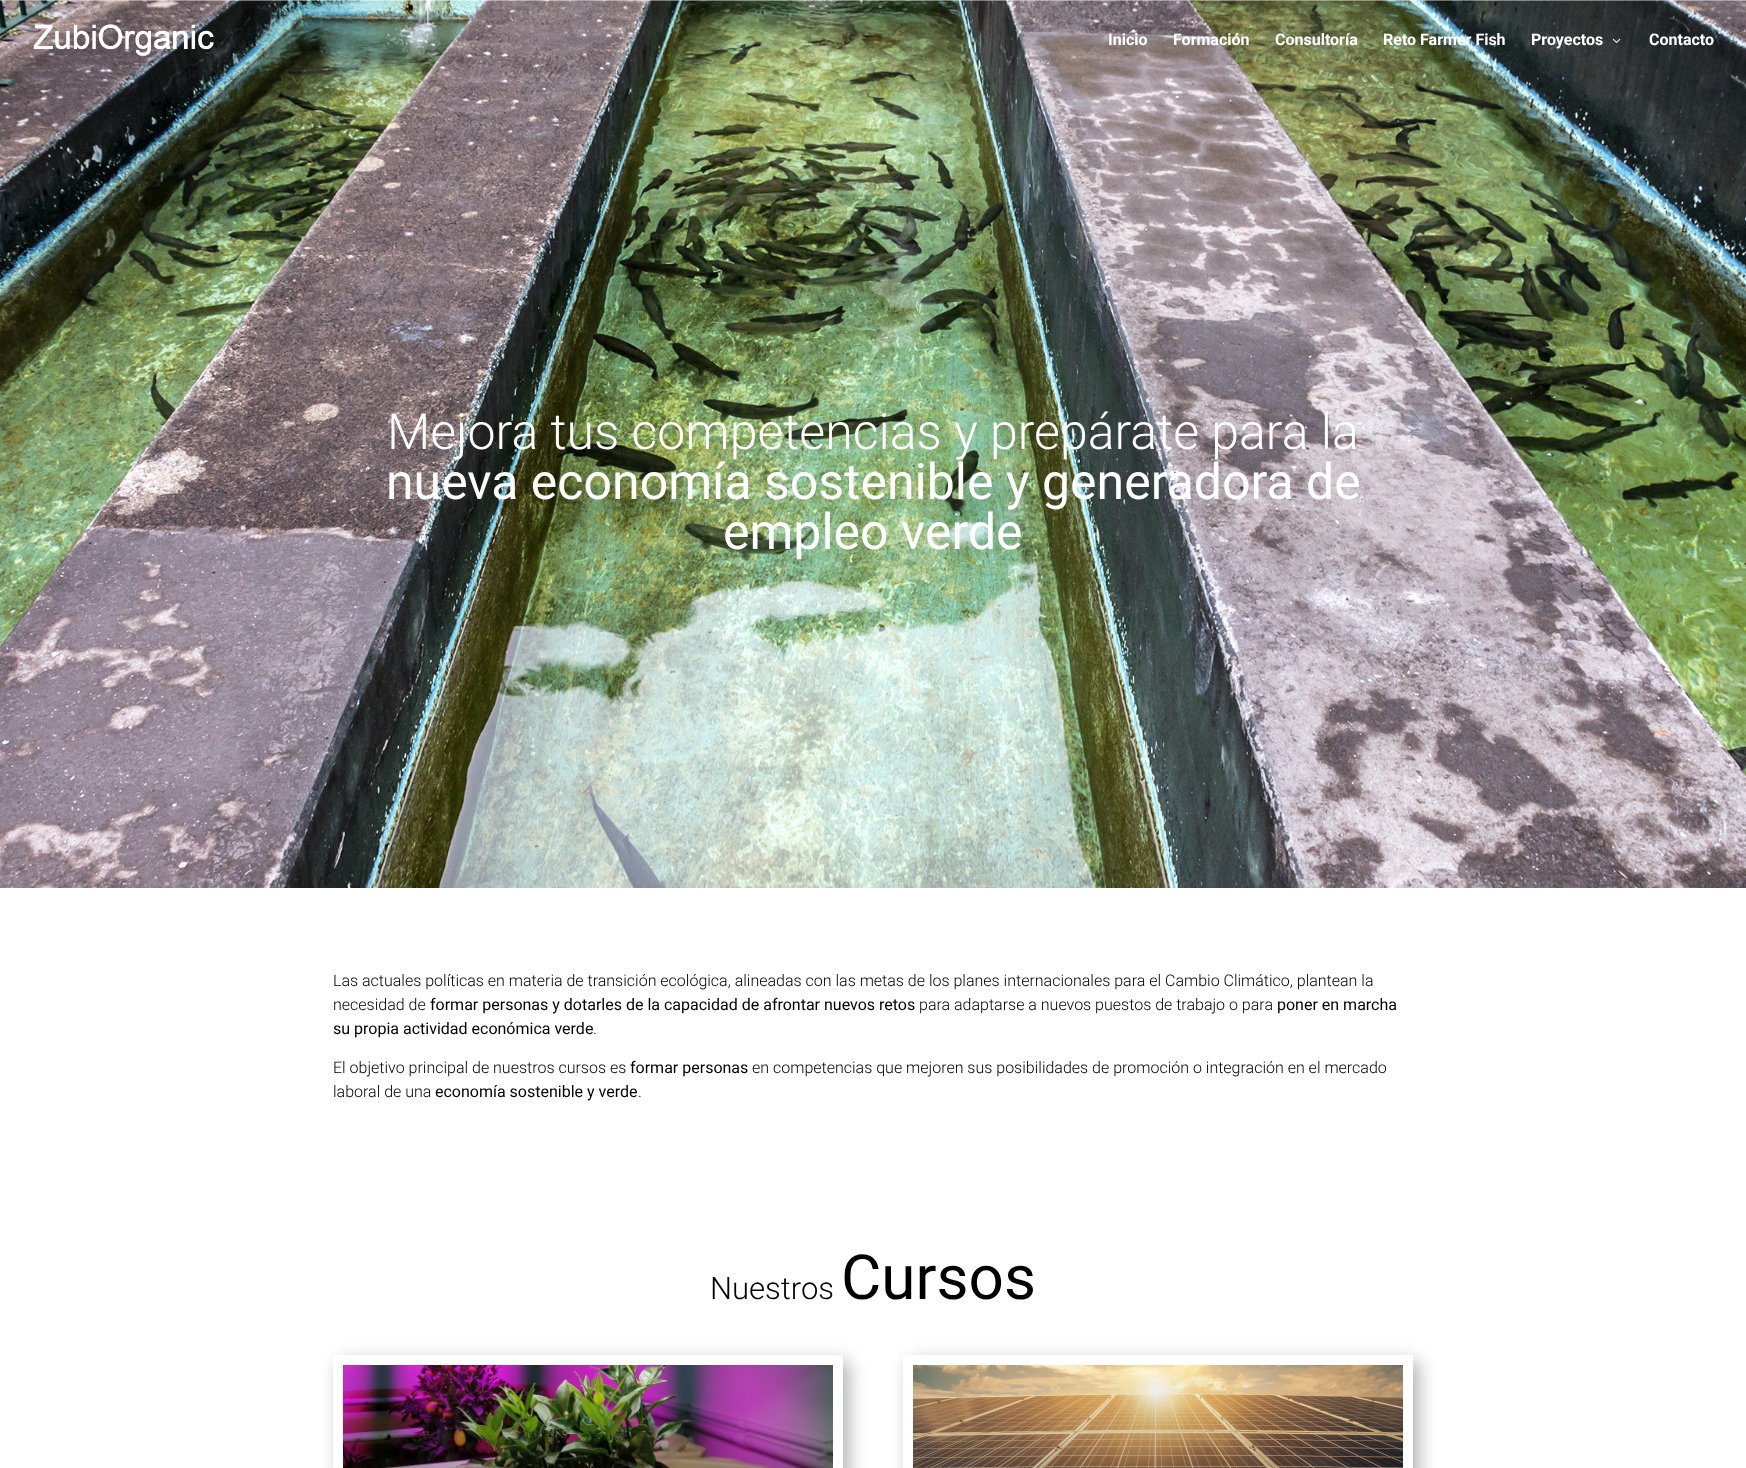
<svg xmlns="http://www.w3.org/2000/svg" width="1746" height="1468">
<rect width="100%" height="100%" fill="#fff"/>
<image x="0" y="0" width="1746" height="888" href="media/3.png"/>
<image x="33" y="24" width="181" height="32" href="media/1.png"/>
<text x="1108" y="45" style="font-family:Roboto;font-size:16px;font-weight:bold;fill:#fff">Inicio</text>
<text x="1173" y="45" style="font-family:Roboto;font-size:16px;font-weight:bold;fill:#fff">Formación</text>
<text x="1275" y="45" style="font-family:Roboto;font-size:16px;font-weight:bold;fill:#fff">Consultoría</text>
<text x="1383" y="45" style="font-family:Roboto;font-size:16px;font-weight:bold;fill:#fff">Reto Farmer Fish</text>
<text x="1531" y="45" style="font-family:Roboto;font-size:16px;font-weight:bold;fill:#fff">Proyectos</text>
<image x="1612" y="38" width="9" height="5" href="media/2.png"/>
<text x="1649" y="45" style="font-family:Roboto;font-size:16px;font-weight:bold;fill:#fff">Contacto</text>
<text x="387" y="449" style="font-family:Roboto;font-size:50px;font-weight:300;fill:#fff">Mejora tus competencias y prepárate para la</text>
<text x="386" y="499" style="font-family:Roboto;font-size:50px;fill:#fff">nueva economía sostenible y generadora de</text>
<text x="723" y="549" style="font-family:Roboto;font-size:50px;fill:#fff">empleo verde</text>
<text x="333" y="986" style="font-family:Roboto;font-size:16px;font-weight:300;fill:#000">Las actuales políticas en materia de transición ecológica, alineadas con las metas de los planes internacionales para el Cambio Climático, plantean la</text>
<text x="333" y="1010" style="font-family:Roboto;font-size:16px;font-weight:300;fill:#000">necesidad de</text>
<text x="430" y="1010" style="font-family:Roboto;font-size:16px;fill:#000">formar personas y dotarles de la capacidad de afrontar nuevos retos</text>
<text x="919" y="1010" style="font-family:Roboto;font-size:16px;font-weight:300;fill:#000">para adaptarse a nuevos puestos de trabajo o para</text>
<text x="1277" y="1010" style="font-family:Roboto;font-size:16px;fill:#000">poner en marcha</text>
<text x="333" y="1034" style="font-family:Roboto;font-size:16px;fill:#000">su propia actividad económica verde</text>
<text x="593" y="1034" style="font-family:Roboto;font-size:16px;font-weight:300;fill:#000">.</text>
<text x="333" y="1073" style="font-family:Roboto;font-size:16px;font-weight:300;fill:#000">El objetivo principal de nuestros cursos es</text>
<text x="630" y="1073" style="font-family:Roboto;font-size:16px;fill:#000">formar personas</text>
<text x="752" y="1073" style="font-family:Roboto;font-size:16px;font-weight:300;fill:#000">en competencias que mejoren sus posibilidades de promoción o integración en el mercado</text>
<text x="333" y="1097" style="font-family:Roboto;font-size:16px;font-weight:300;fill:#000">laboral de una</text>
<text x="435" y="1097" style="font-family:Roboto;font-size:16px;fill:#000">economía sostenible y verde</text>
<text x="638" y="1097" style="font-family:Roboto;font-size:16px;font-weight:300;fill:#000">.</text>
<text x="710" y="1299" style="font-family:Roboto;font-size:31px;font-weight:300;fill:#000">Nuestros</text>
<text x="841" y="1299" style="font-family:Roboto;font-size:62px;fill:#000">Cursos</text>
<rect x="339" y="1361" width="510" height="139" rx="5" fill="#0000004d" filter="blur(9px)"/>
<image x="343" y="1365" width="490" height="103" href="media/4.png"/>
<rect x="338" y="1360" width="500" height="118" fill="none" stroke="#fff" stroke-width="10"/>
<rect x="909" y="1361" width="510" height="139" rx="5" fill="#0000004d" filter="blur(9px)"/>
<image x="903" y="1355" width="510" height="113" href="media/5.png"/>
<rect x="908" y="1360" width="500" height="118" fill="none" stroke="#fff" stroke-width="10"/>
</svg>
